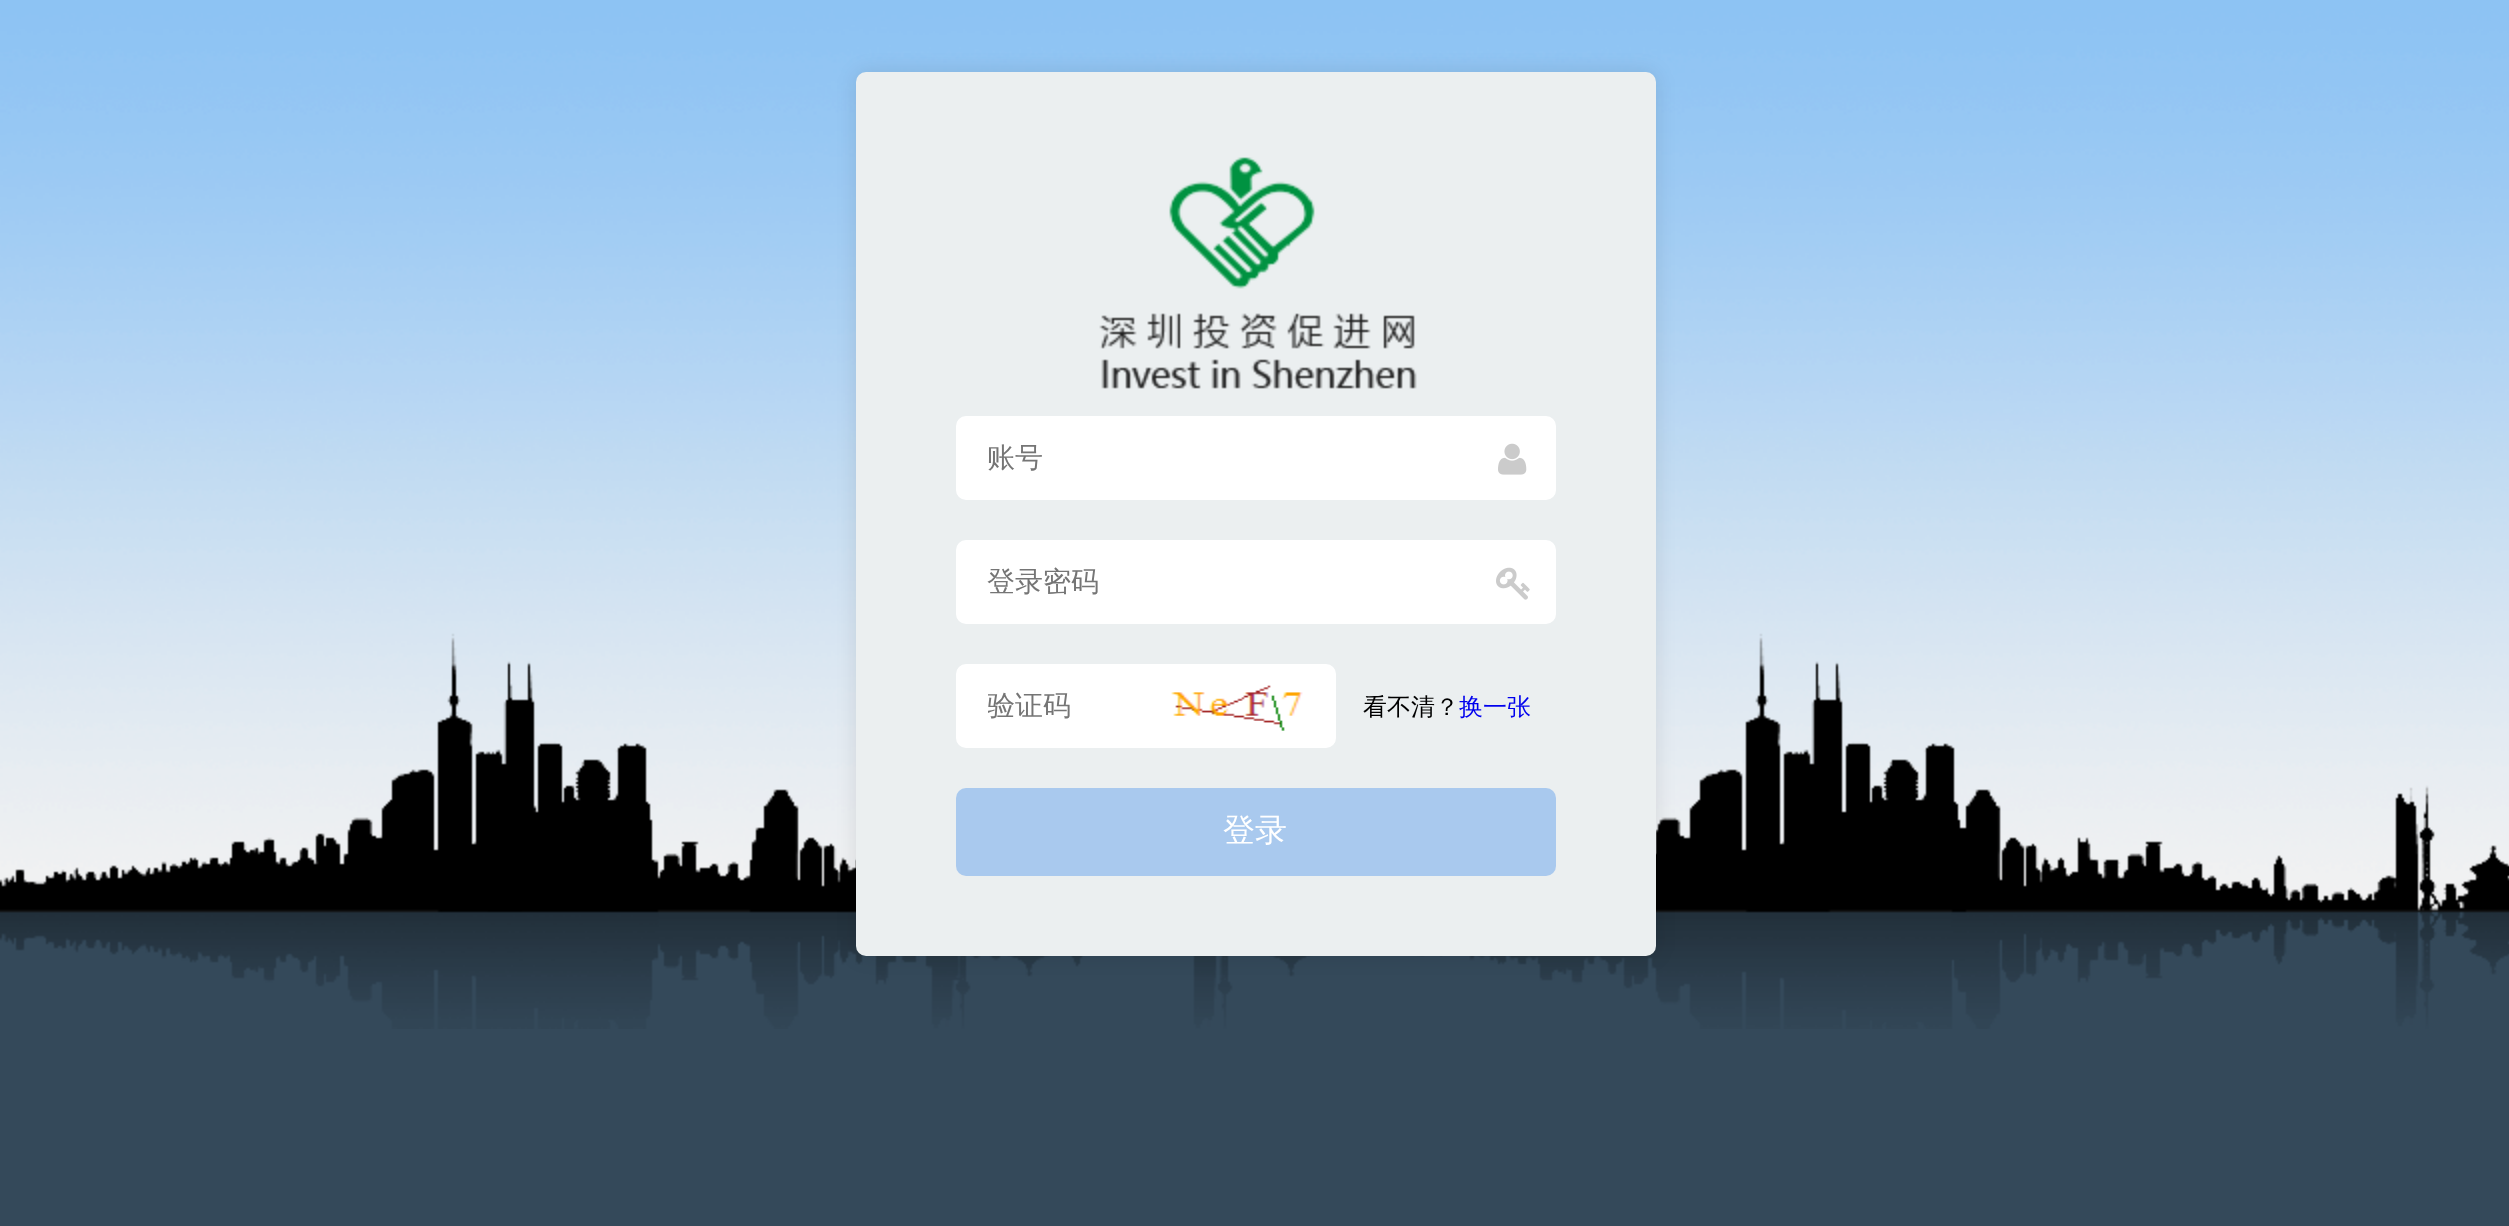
<svg xmlns="http://www.w3.org/2000/svg" width="2509" height="1226">
<defs>
<clipPath id="clip1"><rect x="988" y="690" width="316" height="36"/></clipPath>
</defs>
<rect width="100%" height="100%" fill="#34495a"/>
<image x="0" y="0" width="2509" height="1029" href="media/1.png"/>
<rect x="856" y="72" width="800" height="884" rx="10" fill="#0000001a" filter="blur(10px)"/>
<rect x="856" y="72" width="800" height="884" rx="10" fill="#ebeff0"/>
<image x="1099" y="157" width="318" height="232" href="media/2.png"/>
<rect x="956" y="416" width="600" height="84" rx="10" fill="#fff"/>
<text x="987" y="467" style="font-family:WenQuanYi Zen Hei;font-size:28px;font-weight:500;fill:#757575">账号</text>
<image x="1498" y="443" width="29" height="32" href="media/3.png"/>
<rect x="956" y="540" width="600" height="84" rx="10" fill="#fff"/>
<text x="987" y="591" style="font-family:WenQuanYi Zen Hei;font-size:28px;font-weight:500;fill:#757575">登录密码</text>
<image x="1496" y="567" width="34" height="33" href="media/4.png"/>
<rect x="956" y="664" width="380" height="84" rx="10" fill="#fff"/>
<g clip-path="url(#clip1)">
<text x="987" y="715" style="font-family:WenQuanYi Zen Hei;font-size:28px;font-weight:500;fill:#757575">验证码</text>
</g>
<image x="1171" y="685" width="132" height="46" href="media/5.png"/>
<text x="1363" y="715" style="font-family:WenQuanYi Zen Hei;font-size:24px;font-weight:500;fill:#000">看不清？</text>
<text x="1459" y="715" style="font-family:WenQuanYi Zen Hei;font-size:24px;font-weight:500;fill:#00e">换一张</text>
<rect x="956" y="788" width="600" height="88" rx="10" fill="#a9c9ee"/>
<text x="1223" y="841" style="font-family:WenQuanYi Zen Hei;font-size:32px;font-weight:500;fill:#fff">登录</text>
</svg>
